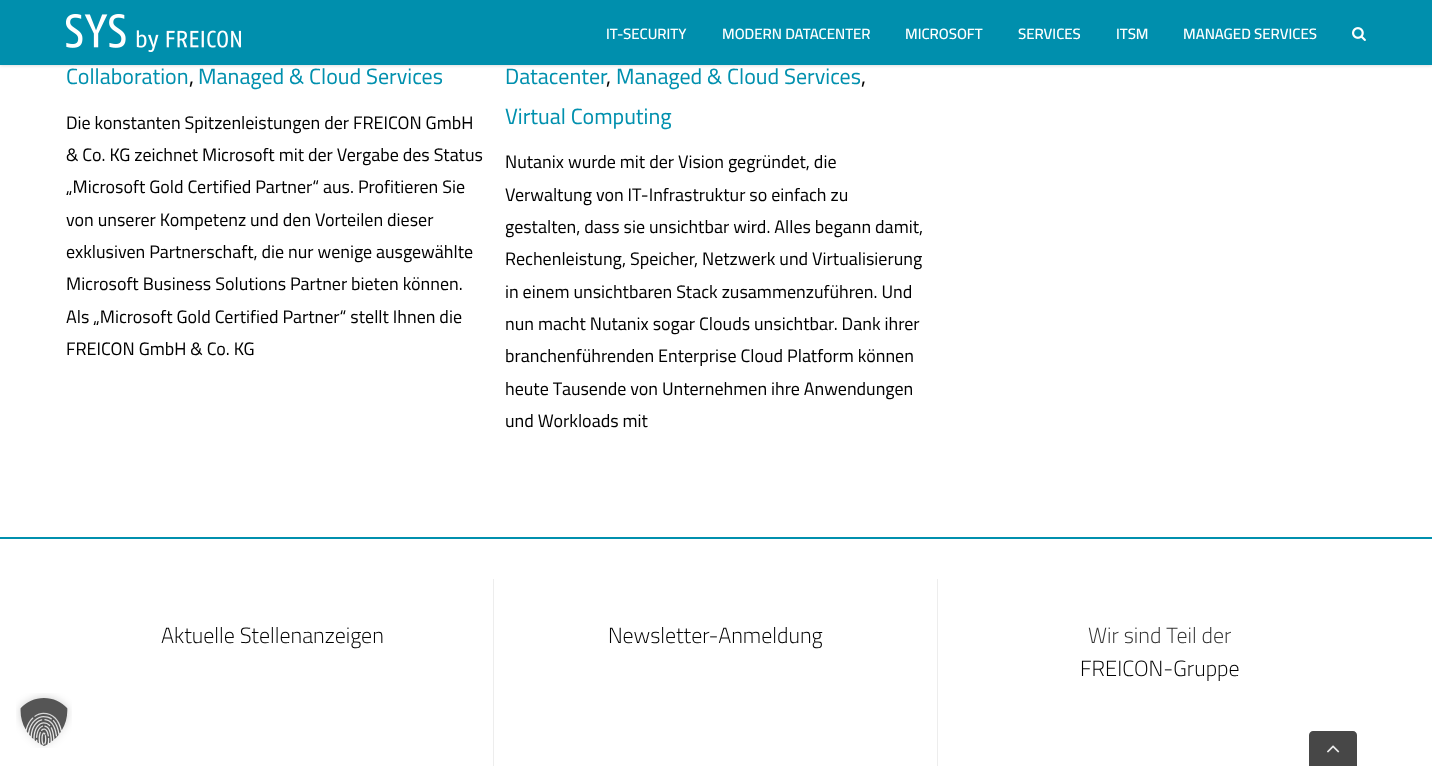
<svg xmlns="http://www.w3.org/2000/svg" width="1432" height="766">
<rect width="100%" height="100%" fill="#fff"/>
<rect y="1" width="1432" height="65" fill="#0000001f" filter="blur(1.5px)"/>
<rect width="1432" height="65" fill="#008fad"/>
<image x="66" y="14" width="175" height="38" href="media/1.png"/>
<text x="606" y="39" style="font-family:Cairo;font-size:15px;font-weight:600;fill:#fff">IT-SECURITY</text>
<text x="722" y="39" style="font-family:Cairo;font-size:15px;font-weight:600;fill:#fff">MODERN DATACENTER</text>
<text x="905" y="39" style="font-family:Cairo;font-size:15px;font-weight:600;fill:#fff">MICROSOFT</text>
<text x="1018" y="39" style="font-family:Cairo;font-size:15px;font-weight:600;fill:#fff">SERVICES</text>
<text x="1116" y="39" style="font-family:Cairo;font-size:15px;font-weight:600;fill:#fff">ITSM</text>
<text x="1183" y="39" style="font-family:Cairo;font-size:15px;font-weight:600;fill:#fff">MANAGED SERVICES</text>
<image x="1352" y="27" width="14" height="14" href="media/2.png"/>
<text x="66" y="84" style="font-family:Cairo;font-size:22px;fill:#0090ae">Collaboration</text>
<text x="189" y="84" style="font-family:Cairo;font-size:22px;fill:#000">,</text>
<text x="198" y="84" style="font-family:Cairo;font-size:22px;fill:#0090ae">Managed &amp; Cloud Services</text>
<text x="66" y="129" style="font-family:Cairo;font-size:18px;fill:#000">Die konstanten Spitzenleistungen der FREICON GmbH</text>
<text x="66" y="161" style="font-family:Cairo;font-size:18px;fill:#000">&amp; Co. KG zeichnet Microsoft mit der Vergabe des Status</text>
<text x="66" y="193" style="font-family:Cairo;font-size:18px;fill:#000">„Microsoft Gold Certified Partner“ aus. Profitieren Sie</text>
<text x="66" y="226" style="font-family:Cairo;font-size:18px;fill:#000">von unserer Kompetenz und den Vorteilen dieser</text>
<text x="66" y="258" style="font-family:Cairo;font-size:18px;fill:#000">exklusiven Partnerschaft, die nur wenige ausgewählte</text>
<text x="66" y="290" style="font-family:Cairo;font-size:18px;fill:#000">Microsoft Business Solutions Partner bieten können.</text>
<text x="66" y="323" style="font-family:Cairo;font-size:18px;fill:#000">Als „Microsoft Gold Certified Partner“ stellt Ihnen die</text>
<text x="66" y="355" style="font-family:Cairo;font-size:18px;fill:#000">FREICON GmbH &amp; Co. KG</text>
<text x="505" y="84" style="font-family:Cairo;font-size:22px;fill:#0090ae">Datacenter</text>
<text x="606" y="84" style="font-family:Cairo;font-size:22px;fill:#000">,</text>
<text x="616" y="84" style="font-family:Cairo;font-size:22px;fill:#0090ae">Managed &amp; Cloud Services</text>
<text x="861" y="84" style="font-family:Cairo;font-size:22px;fill:#000">,</text>
<text x="505" y="124" style="font-family:Cairo;font-size:22px;fill:#0090ae">Virtual Computing</text>
<text x="505" y="168" style="font-family:Cairo;font-size:18px;fill:#000">Nutanix wurde mit der Vision gegründet, die</text>
<text x="505" y="201" style="font-family:Cairo;font-size:18px;fill:#000">Verwaltung von IT-Infrastruktur so einfach zu</text>
<text x="505" y="233" style="font-family:Cairo;font-size:18px;fill:#000">gestalten, dass sie unsichtbar wird. Alles begann damit,</text>
<text x="505" y="265" style="font-family:Cairo;font-size:18px;fill:#000">Rechenleistung, Speicher, Netzwerk und Virtualisierung</text>
<text x="505" y="298" style="font-family:Cairo;font-size:18px;fill:#000">in einem unsichtbaren Stack zusammenzuführen. Und</text>
<text x="505" y="330" style="font-family:Cairo;font-size:18px;fill:#000">nun macht Nutanix sogar Clouds unsichtbar. Dank ihrer</text>
<text x="505" y="362" style="font-family:Cairo;font-size:18px;fill:#000">branchenführenden Enterprise Cloud Platform können</text>
<text x="505" y="395" style="font-family:Cairo;font-size:18px;fill:#000">heute Tausende von Unternehmen ihre Anwendungen</text>
<text x="505" y="427" style="font-family:Cairo;font-size:18px;fill:#000">und Workloads mit</text>
<rect y="537" width="1432" height="2" fill="#0090ae"/>
<rect x="493" y="579" width="1" height="187" fill="#ededed"/>
<text x="161" y="643" style="font-family:Cairo;font-size:22px;font-weight:300;fill:#000">Aktuelle Stellenanzeigen</text>
<rect x="937" y="579" width="1" height="187" fill="#ededed"/>
<text x="608" y="643" style="font-family:Cairo;font-size:22px;font-weight:300;fill:#000">Newsletter-Anmeldung</text>
<text x="1088" y="643" style="font-family:Cairo;font-size:22px;font-weight:300;fill:#333">Wir sind Teil der</text>
<text x="1080" y="676" style="font-family:Cairo;font-size:22px;font-weight:300;fill:#000">FREICON-Gruppe</text>
<image x="16" y="693" width="56" height="55" href="media/3.png"/>
<path d="M1313 731h40c2 0 4 2 4 4v31h-48v-31c0-2 2-4 4-4z" fill="#474747"/>
<image x="1327" y="745" width="13" height="8" href="media/4.png"/>
</svg>
